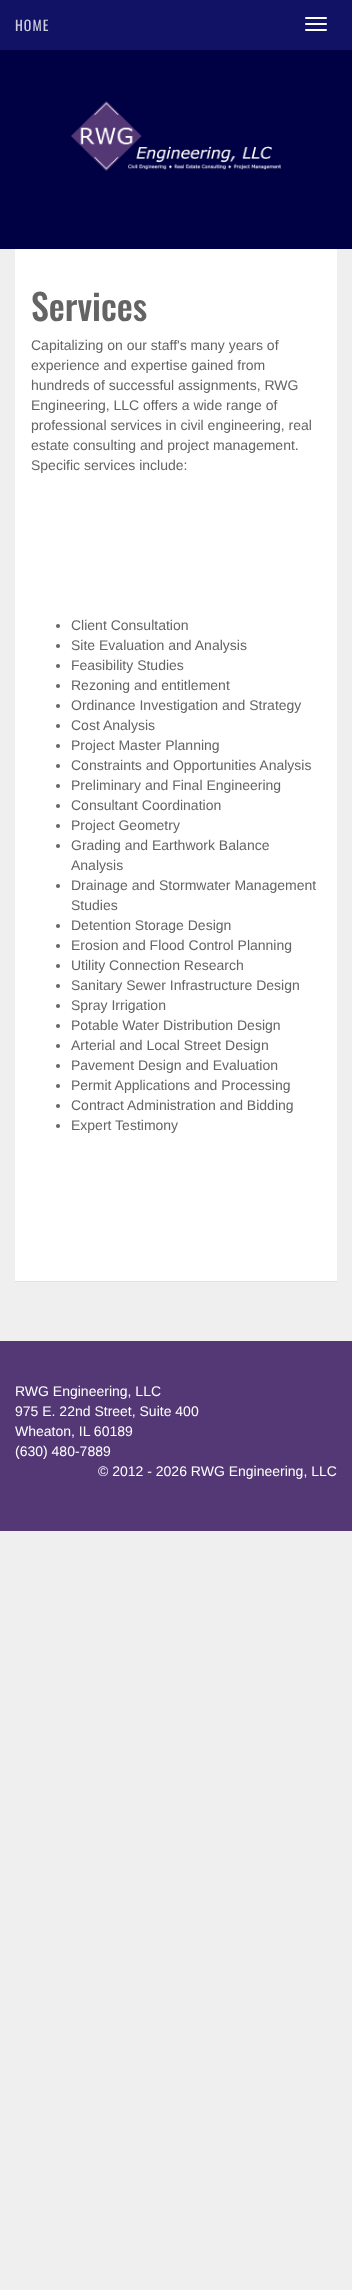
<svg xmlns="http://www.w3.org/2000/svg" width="352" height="2290">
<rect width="100%" height="100%" fill="#efefef"/>
<rect width="352" height="50" fill="#116"/>
<text x="15" y="31" style="font-family:Oswald;font-size:14px;letter-spacing:1px;fill:#ccd">HOME</text>
<rect x="305" y="17" width="22" height="2" rx="1" fill="#fff"/>
<rect x="305" y="23" width="22" height="2" rx="1" fill="#fff"/>
<rect x="305" y="29" width="22" height="2" rx="1" fill="#fff"/>
<rect y="50" width="352" height="199" fill="#004"/>
<image x="71" y="101" width="210" height="70" href="media/1.png"/>
<rect x="15" y="250" width="322" height="1032" fill="#0000000d" filter="blur(0.5px)"/>
<rect x="15" y="249" width="322" height="1032" fill="#fff"/>
<text x="31" y="321" style="font-family:Oswald;font-size:36px;font-weight:500;fill:#646464">Services</text>
<text x="31" y="350" style="font-family:Liberation Sans;font-size:14px;fill:#646464">Capitalizing on our staff's many years of</text>
<text x="31" y="370" style="font-family:Liberation Sans;font-size:14px;fill:#646464">experience and expertise gained from</text>
<text x="31" y="390" style="font-family:Liberation Sans;font-size:14px;fill:#646464">hundreds of successful assignments, RWG</text>
<text x="31" y="410" style="font-family:Liberation Sans;font-size:14px;fill:#646464">Engineering, LLC offers a wide range of</text>
<text x="31" y="430" style="font-family:Liberation Sans;font-size:14px;fill:#646464">professional services in civil engineering, real</text>
<text x="31" y="450" style="font-family:Liberation Sans;font-size:14px;fill:#646464">estate consulting and project management.</text>
<text x="31" y="470" style="font-family:Liberation Sans;font-size:14px;fill:#646464">Specific services include:</text>
<circle cx="58" cy="626" r="2" fill="#646464"/>
<text x="71" y="630" style="font-family:Liberation Sans;font-size:14px;fill:#646464">Client Consultation</text>
<circle cx="58" cy="646" r="2" fill="#646464"/>
<text x="71" y="650" style="font-family:Liberation Sans;font-size:14px;fill:#646464">Site Evaluation and Analysis</text>
<circle cx="58" cy="666" r="2" fill="#646464"/>
<text x="71" y="670" style="font-family:Liberation Sans;font-size:14px;fill:#646464">Feasibility Studies</text>
<circle cx="58" cy="686" r="2" fill="#646464"/>
<text x="71" y="690" style="font-family:Liberation Sans;font-size:14px;fill:#646464">Rezoning and entitlement</text>
<circle cx="58" cy="706" r="2" fill="#646464"/>
<text x="71" y="710" style="font-family:Liberation Sans;font-size:14px;fill:#646464">Ordinance Investigation and Strategy</text>
<circle cx="58" cy="726" r="2" fill="#646464"/>
<text x="71" y="730" style="font-family:Liberation Sans;font-size:14px;fill:#646464">Cost Analysis</text>
<circle cx="58" cy="746" r="2" fill="#646464"/>
<text x="71" y="750" style="font-family:Liberation Sans;font-size:14px;fill:#646464">Project Master Planning</text>
<circle cx="58" cy="766" r="2" fill="#646464"/>
<text x="71" y="770" style="font-family:Liberation Sans;font-size:14px;fill:#646464">Constraints and Opportunities Analysis</text>
<circle cx="58" cy="786" r="2" fill="#646464"/>
<text x="71" y="790" style="font-family:Liberation Sans;font-size:14px;fill:#646464">Preliminary and Final Engineering</text>
<circle cx="58" cy="806" r="2" fill="#646464"/>
<text x="71" y="810" style="font-family:Liberation Sans;font-size:14px;fill:#646464">Consultant Coordination</text>
<circle cx="58" cy="826" r="2" fill="#646464"/>
<text x="71" y="830" style="font-family:Liberation Sans;font-size:14px;fill:#646464">Project Geometry</text>
<circle cx="58" cy="846" r="2" fill="#646464"/>
<text x="71" y="850" style="font-family:Liberation Sans;font-size:14px;fill:#646464">Grading and Earthwork Balance</text>
<text x="71" y="870" style="font-family:Liberation Sans;font-size:14px;fill:#646464">Analysis</text>
<circle cx="58" cy="886" r="2" fill="#646464"/>
<text x="71" y="890" style="font-family:Liberation Sans;font-size:14px;fill:#646464">Drainage and Stormwater Management</text>
<text x="71" y="910" style="font-family:Liberation Sans;font-size:14px;fill:#646464">Studies</text>
<circle cx="58" cy="926" r="2" fill="#646464"/>
<text x="71" y="930" style="font-family:Liberation Sans;font-size:14px;fill:#646464">Detention Storage Design</text>
<circle cx="58" cy="946" r="2" fill="#646464"/>
<text x="71" y="950" style="font-family:Liberation Sans;font-size:14px;fill:#646464">Erosion and Flood Control Planning</text>
<circle cx="58" cy="966" r="2" fill="#646464"/>
<text x="71" y="970" style="font-family:Liberation Sans;font-size:14px;fill:#646464">Utility Connection Research</text>
<circle cx="58" cy="986" r="2" fill="#646464"/>
<text x="71" y="990" style="font-family:Liberation Sans;font-size:14px;fill:#646464">Sanitary Sewer Infrastructure Design</text>
<circle cx="58" cy="1006" r="2" fill="#646464"/>
<text x="71" y="1010" style="font-family:Liberation Sans;font-size:14px;fill:#646464">Spray Irrigation</text>
<circle cx="58" cy="1026" r="2" fill="#646464"/>
<text x="71" y="1030" style="font-family:Liberation Sans;font-size:14px;fill:#646464">Potable Water Distribution Design</text>
<circle cx="58" cy="1046" r="2" fill="#646464"/>
<text x="71" y="1050" style="font-family:Liberation Sans;font-size:14px;fill:#646464">Arterial and Local Street Design</text>
<circle cx="58" cy="1066" r="2" fill="#646464"/>
<text x="71" y="1070" style="font-family:Liberation Sans;font-size:14px;fill:#646464">Pavement Design and Evaluation</text>
<circle cx="58" cy="1086" r="2" fill="#646464"/>
<text x="71" y="1090" style="font-family:Liberation Sans;font-size:14px;fill:#646464">Permit Applications and Processing</text>
<circle cx="58" cy="1106" r="2" fill="#646464"/>
<text x="71" y="1110" style="font-family:Liberation Sans;font-size:14px;fill:#646464">Contract Administration and Bidding</text>
<circle cx="58" cy="1126" r="2" fill="#646464"/>
<text x="71" y="1130" style="font-family:Liberation Sans;font-size:14px;fill:#646464">Expert Testimony</text>
<rect y="1341" width="352" height="190" fill="#533875"/>
<text x="15" y="1396" style="font-family:Liberation Sans;font-size:14px;fill:#fff">RWG Engineering, LLC</text>
<text x="15" y="1416" style="font-family:Liberation Sans;font-size:14px;fill:#fff">975 E. 22nd Street, Suite 400</text>
<text x="15" y="1436" style="font-family:Liberation Sans;font-size:14px;fill:#fff">Wheaton, IL 60189</text>
<text x="15" y="1456" style="font-family:Liberation Sans;font-size:14px;fill:#fff">(630) 480-7889</text>
<text x="98" y="1476" style="font-family:Liberation Sans;font-size:14px;fill:#fff">© 2012 - 2026 RWG Engineering, LLC</text>
</svg>
